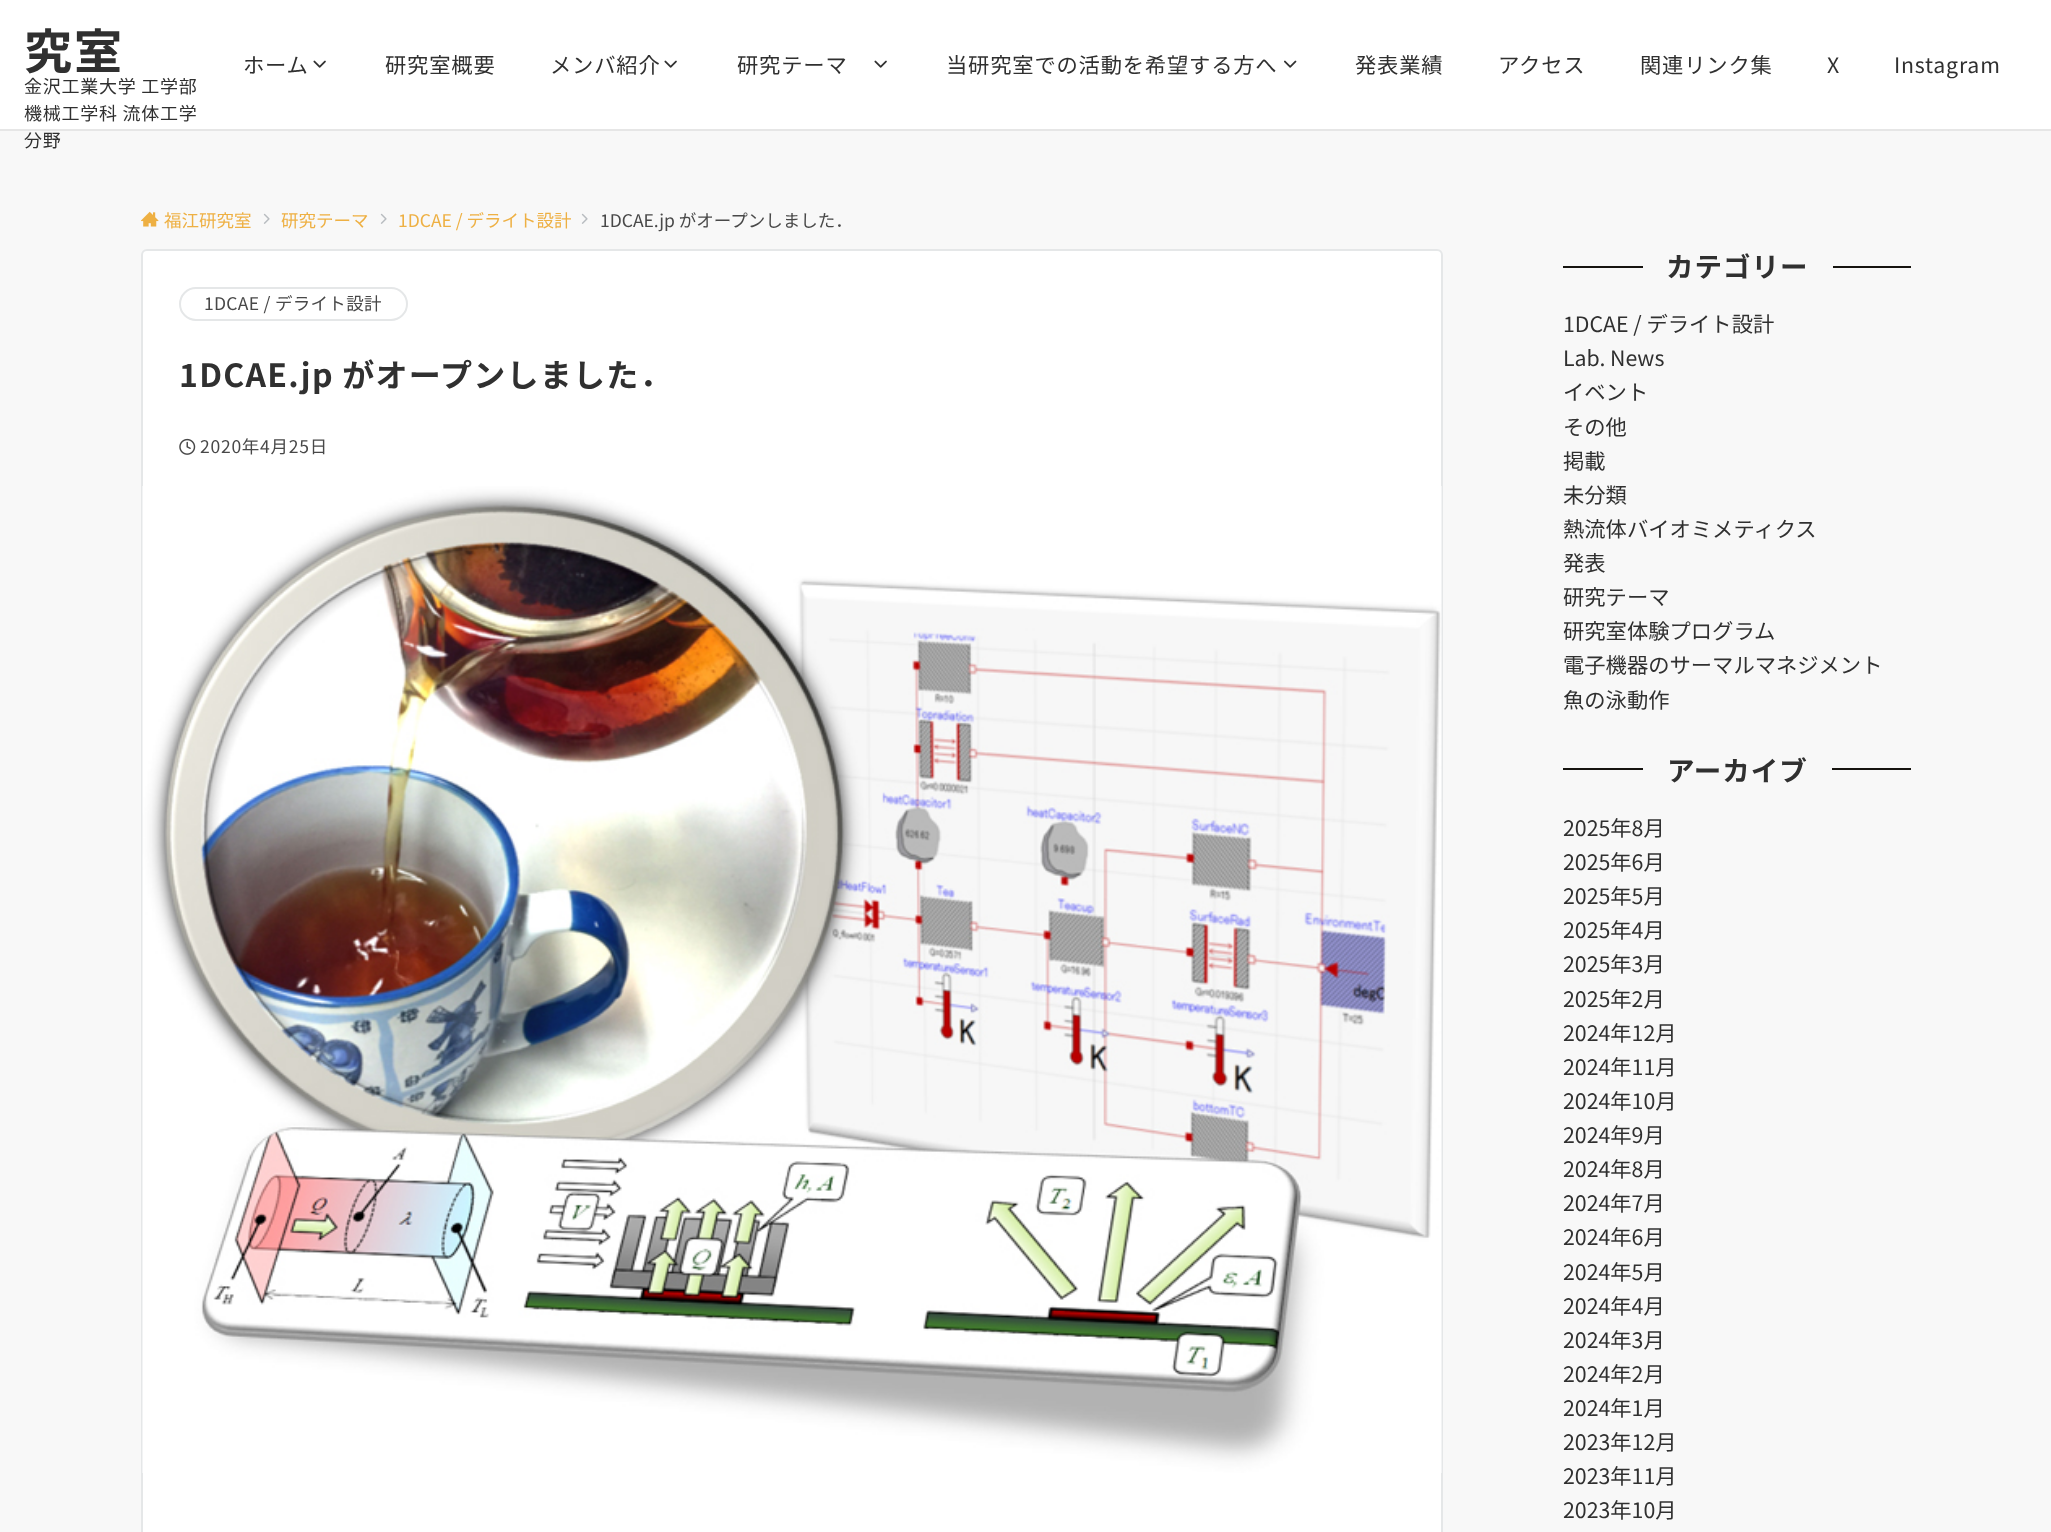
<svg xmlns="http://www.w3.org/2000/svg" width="2051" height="1532">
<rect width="100%" height="100%" fill="#f8f8f8"/>
<rect width="2051" height="129" fill="#fff"/>
<rect y="129" width="2051" height="2" fill="#e6e6e6"/>
<text x="24" y="69" style="font-family:Noto Sans JP;font-size:48px;font-weight:bold;letter-spacing:2px;fill:#303030">究室</text>
<text x="24" y="93" style="font-family:Noto Sans JP;font-size:18px;letter-spacing:0.75px;fill:#303030">金沢工業大学 工学部</text>
<text x="24" y="120" style="font-family:Noto Sans JP;font-size:18px;letter-spacing:0.75px;fill:#303030">機械工学科 流体工学</text>
<text x="24" y="147" style="font-family:Noto Sans JP;font-size:18px;letter-spacing:0.75px;fill:#303030">分野</text>
<text x="243" y="73" style="font-family:Noto Sans JP;font-size:21.3px;letter-spacing:0.8px;fill:#303030">ホーム</text>
<image x="313" y="60" width="13" height="8" href="media/1.png"/>
<text x="385" y="73" style="font-family:Noto Sans JP;font-size:21.3px;letter-spacing:0.8px;fill:#303030">研究室概要</text>
<text x="550" y="73" style="font-family:Noto Sans JP;font-size:21.3px;letter-spacing:0.8px;fill:#303030">メンバ紹介</text>
<image x="664" y="60" width="13" height="8" href="media/1.png"/>
<text x="737" y="73" style="font-family:Noto Sans JP;font-size:21.3px;letter-spacing:0.8px;fill:#303030">研究テーマ</text>
<image x="874" y="60" width="13" height="8" href="media/1.png"/>
<text x="946" y="73" style="font-family:Noto Sans JP;font-size:21.3px;letter-spacing:0.8px;fill:#303030">当研究室での活動を希望する方へ</text>
<image x="1284" y="60" width="13" height="8" href="media/2.png"/>
<text x="1355" y="73" style="font-family:Noto Sans JP;font-size:21.3px;letter-spacing:0.8px;fill:#303030">発表業績</text>
<text x="1498" y="73" style="font-family:Noto Sans JP;font-size:21.3px;letter-spacing:0.8px;fill:#303030">アクセス</text>
<text x="1640" y="73" style="font-family:Noto Sans JP;font-size:21.3px;letter-spacing:0.8px;fill:#303030">関連リンク集</text>
<text x="1827" y="73" style="font-family:Noto Sans JP;font-size:21.3px;letter-spacing:0.8px;fill:#303030">X</text>
<text x="1894" y="73" style="font-family:Noto Sans JP;font-size:21.3px;letter-spacing:0.8px;fill:#303030">Instagram</text>
<image x="141" y="211" width="18" height="16" href="media/3.png"/>
<text x="164" y="227" style="font-family:Noto Sans JP;font-size:17.5px;fill:#eeb043">福江研究室</text>
<image x="263" y="213" width="7" height="11" href="media/4.png"/>
<text x="281" y="227" style="font-family:Noto Sans JP;font-size:17.5px;fill:#eeb043">研究テーマ</text>
<image x="380" y="213" width="7" height="11" href="media/4.png"/>
<text x="398" y="227" style="font-family:Noto Sans JP;font-size:17.5px;fill:#eeb043">1DCAE / デライト設計</text>
<image x="581" y="213" width="7" height="11" href="media/4.png"/>
<text x="600" y="227" style="font-family:Noto Sans JP;font-size:17.5px;fill:#484848">1DCAE.jp がオープンしました．</text>
<rect x="142" y="250" width="1300" height="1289" rx="5" fill="#fff" stroke="#e5e7e8" stroke-width="2"/>
<rect x="180" y="288" width="227" height="32" rx="16" fill="none" stroke="#e5e7e8" stroke-width="2"/>
<text x="204" y="310" style="font-family:Noto Sans JP;font-size:17.5px;letter-spacing:0.3px;fill:#484848">1DCAE / デライト設計</text>
<text x="179" y="387" style="font-family:Noto Sans JP;font-size:32px;font-weight:bold;letter-spacing:1.25px;fill:#303030">1DCAE.jp がオープンしました．</text>
<image x="179" y="438" width="17" height="17" href="media/5.png"/>
<text x="200" y="453" style="font-family:Noto Sans JP;font-size:17.5px;letter-spacing:0.75px;fill:#484848">2020年4月25日</text>
<image x="142" y="486" width="1300" height="987" href="media/6.png"/>
<rect x="1563" y="266" width="80" height="2" fill="#161410"/>
<text x="1666" y="277" style="font-family:Noto Sans JP;font-size:27.5px;font-weight:bold;letter-spacing:1px;fill:#303030">カテゴリー</text>
<rect x="1833" y="266" width="78" height="2" fill="#161410"/>
<text x="1563" y="332" style="font-family:Noto Sans JP;font-size:21.3px;fill:#303030">1DCAE / デライト設計</text>
<text x="1563" y="366" style="font-family:Noto Sans JP;font-size:21.3px;fill:#303030">Lab. News</text>
<text x="1563" y="400" style="font-family:Noto Sans JP;font-size:21.3px;fill:#303030">イベント</text>
<text x="1563" y="435" style="font-family:Noto Sans JP;font-size:21.3px;fill:#303030">その他</text>
<text x="1563" y="469" style="font-family:Noto Sans JP;font-size:21.3px;fill:#303030">掲載</text>
<text x="1563" y="503" style="font-family:Noto Sans JP;font-size:21.3px;fill:#303030">未分類</text>
<text x="1563" y="537" style="font-family:Noto Sans JP;font-size:21.3px;fill:#303030">熱流体バイオミメティクス</text>
<text x="1563" y="571" style="font-family:Noto Sans JP;font-size:21.3px;fill:#303030">発表</text>
<text x="1563" y="605" style="font-family:Noto Sans JP;font-size:21.3px;fill:#303030">研究テーマ</text>
<text x="1563" y="639" style="font-family:Noto Sans JP;font-size:21.3px;fill:#303030">研究室体験プログラム</text>
<text x="1563" y="673" style="font-family:Noto Sans JP;font-size:21.3px;fill:#303030">電子機器のサーマルマネジメント</text>
<text x="1563" y="708" style="font-family:Noto Sans JP;font-size:21.3px;fill:#303030">魚の泳動作</text>
<rect x="1563" y="768" width="80" height="2" fill="#161410"/>
<text x="1667" y="781" style="font-family:Noto Sans JP;font-size:27.5px;font-weight:bold;letter-spacing:1px;fill:#303030">アーカイブ</text>
<rect x="1832" y="768" width="79" height="2" fill="#161410"/>
<text x="1563" y="836" style="font-family:Noto Sans JP;font-size:21.3px;fill:#303030">2025年8月</text>
<text x="1563" y="870" style="font-family:Noto Sans JP;font-size:21.3px;fill:#303030">2025年6月</text>
<text x="1563" y="904" style="font-family:Noto Sans JP;font-size:21.3px;fill:#303030">2025年5月</text>
<text x="1563" y="938" style="font-family:Noto Sans JP;font-size:21.3px;fill:#303030">2025年4月</text>
<text x="1563" y="972" style="font-family:Noto Sans JP;font-size:21.3px;fill:#303030">2025年3月</text>
<text x="1563" y="1007" style="font-family:Noto Sans JP;font-size:21.3px;fill:#303030">2025年2月</text>
<text x="1563" y="1041" style="font-family:Noto Sans JP;font-size:21.3px;fill:#303030">2024年12月</text>
<text x="1563" y="1075" style="font-family:Noto Sans JP;font-size:21.3px;fill:#303030">2024年11月</text>
<text x="1563" y="1109" style="font-family:Noto Sans JP;font-size:21.3px;fill:#303030">2024年10月</text>
<text x="1563" y="1143" style="font-family:Noto Sans JP;font-size:21.3px;fill:#303030">2024年9月</text>
<text x="1563" y="1177" style="font-family:Noto Sans JP;font-size:21.3px;fill:#303030">2024年8月</text>
<text x="1563" y="1211" style="font-family:Noto Sans JP;font-size:21.3px;fill:#303030">2024年7月</text>
<text x="1563" y="1245" style="font-family:Noto Sans JP;font-size:21.3px;fill:#303030">2024年6月</text>
<text x="1563" y="1280" style="font-family:Noto Sans JP;font-size:21.3px;fill:#303030">2024年5月</text>
<text x="1563" y="1314" style="font-family:Noto Sans JP;font-size:21.3px;fill:#303030">2024年4月</text>
<text x="1563" y="1348" style="font-family:Noto Sans JP;font-size:21.3px;fill:#303030">2024年3月</text>
<text x="1563" y="1382" style="font-family:Noto Sans JP;font-size:21.3px;fill:#303030">2024年2月</text>
<text x="1563" y="1416" style="font-family:Noto Sans JP;font-size:21.3px;fill:#303030">2024年1月</text>
<text x="1563" y="1450" style="font-family:Noto Sans JP;font-size:21.3px;fill:#303030">2023年12月</text>
<text x="1563" y="1484" style="font-family:Noto Sans JP;font-size:21.3px;fill:#303030">2023年11月</text>
<text x="1563" y="1518" style="font-family:Noto Sans JP;font-size:21.3px;fill:#303030">2023年10月</text>
</svg>
